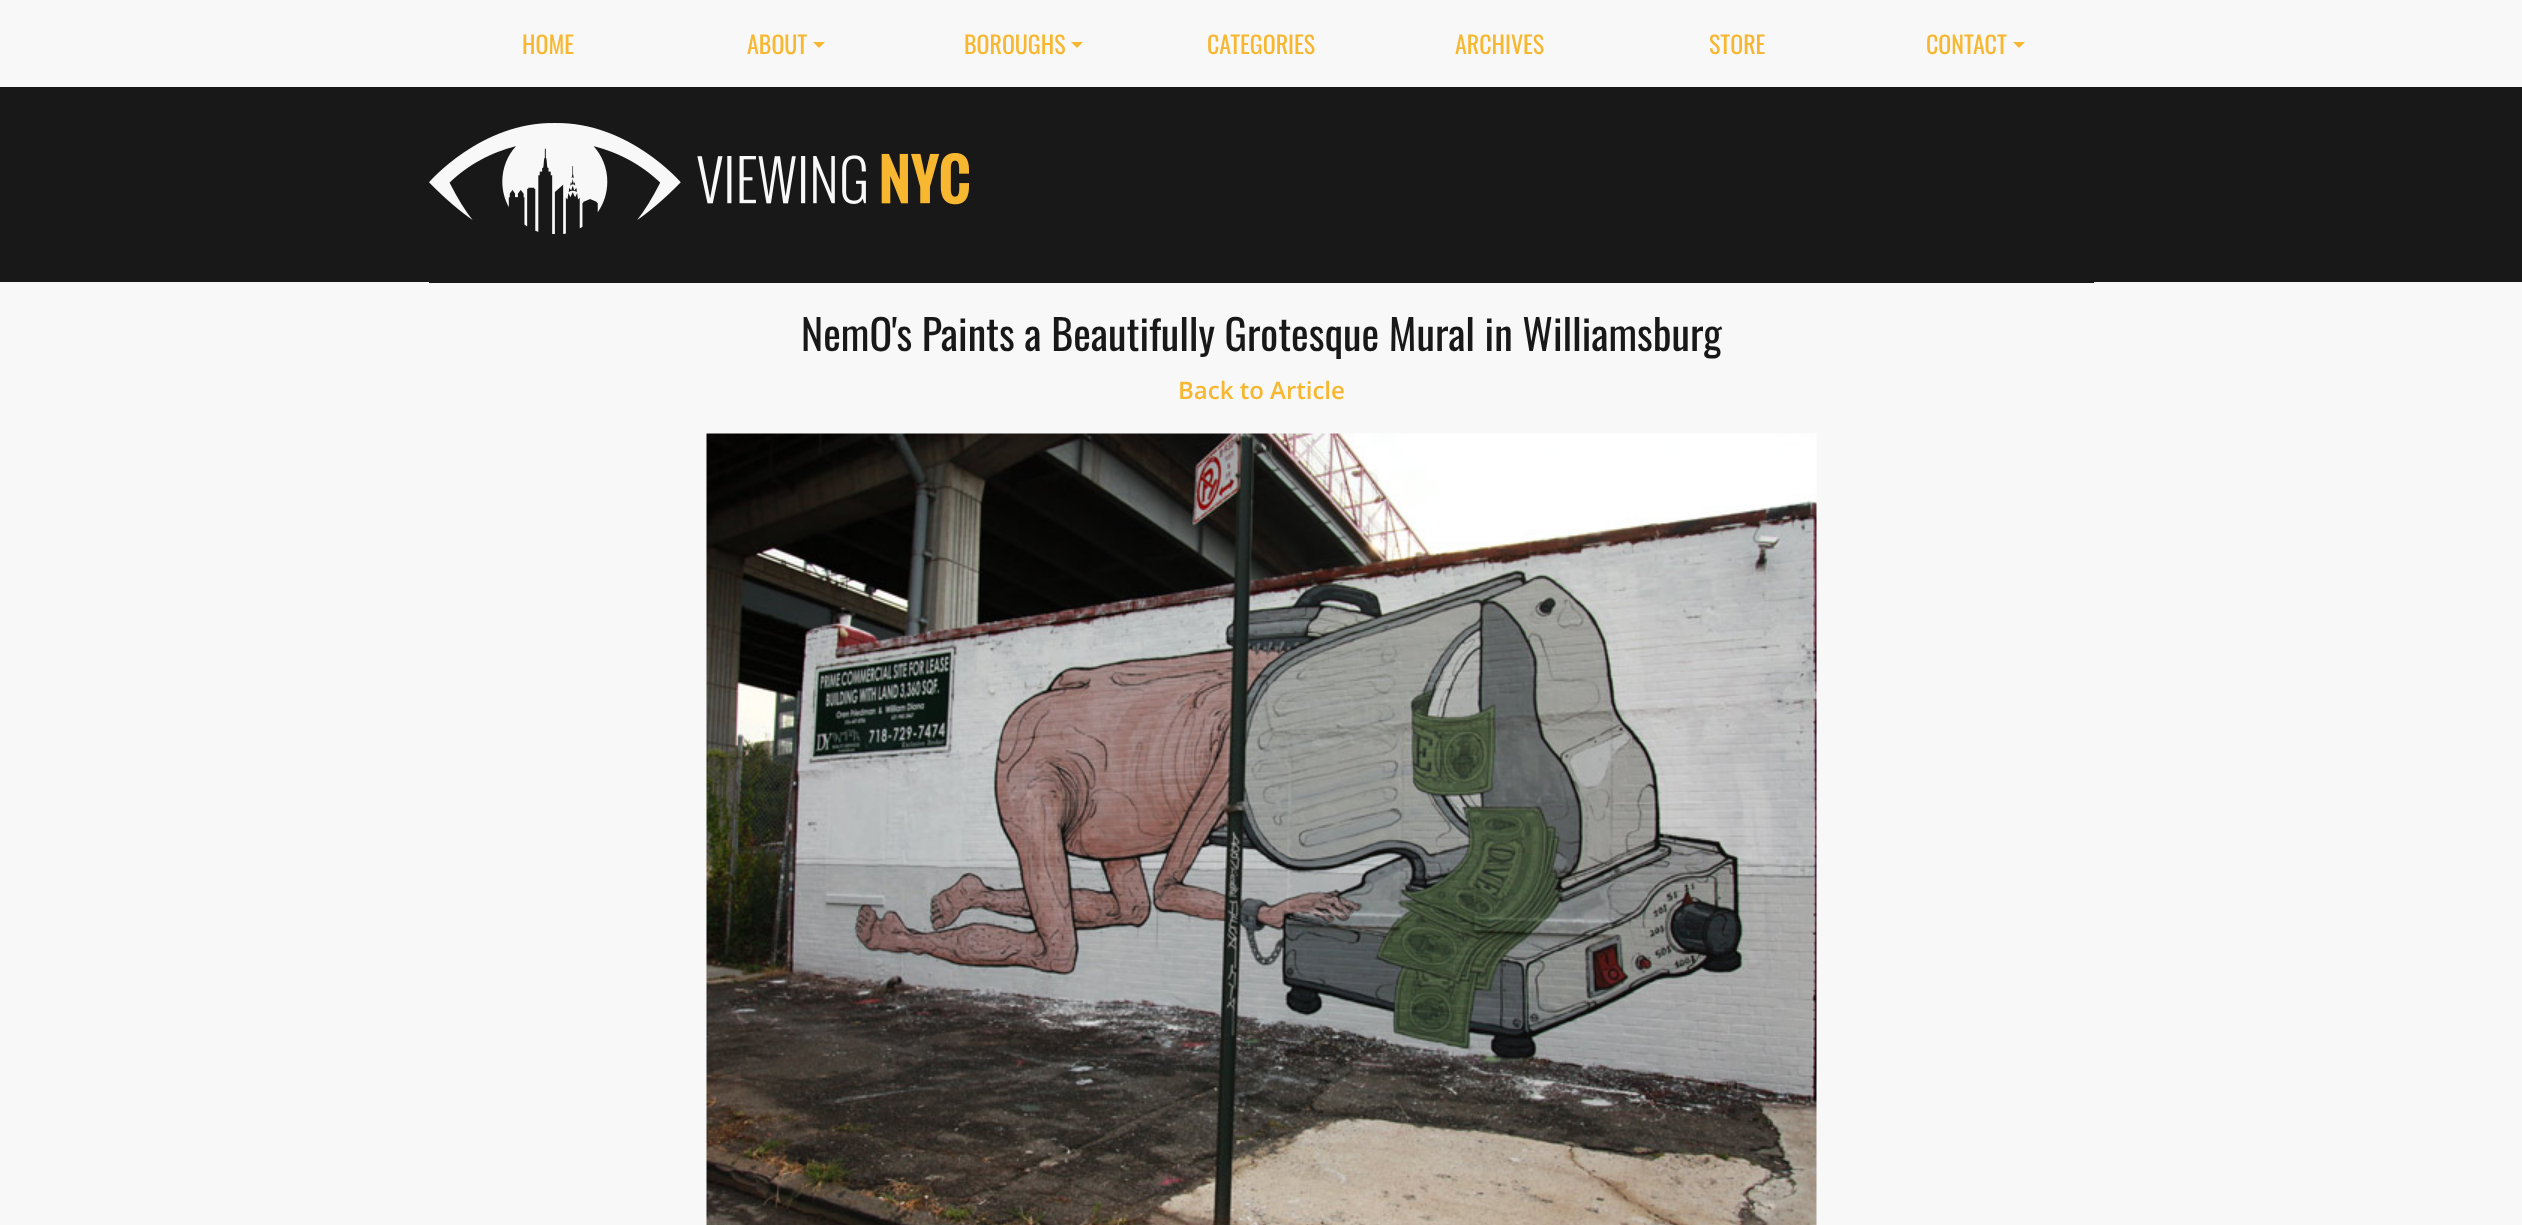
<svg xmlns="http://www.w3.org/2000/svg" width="2522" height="1225">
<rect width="100%" height="100%" fill="#f8f8f8"/>
<text x="522" y="54" style="font-family:Oswald;font-size:24px;fill:#f7b731">HOME</text>
<text x="747" y="54" style="font-family:Oswald;font-size:24px;fill:#f7b731">ABOUT</text>
<path d="M813 42h12l-6 6z" fill="#f7b731"/>
<text x="964" y="54" style="font-family:Oswald;font-size:24px;fill:#f7b731">BOROUGHS</text>
<path d="M1071 42h12l-6 6z" fill="#f7b731"/>
<text x="1207" y="54" style="font-family:Oswald;font-size:24px;fill:#f7b731">CATEGORIES</text>
<text x="1455" y="54" style="font-family:Oswald;font-size:24px;fill:#f7b731">ARCHIVES</text>
<text x="1709" y="54" style="font-family:Oswald;font-size:24px;fill:#f7b731">STORE</text>
<text x="1926" y="54" style="font-family:Oswald;font-size:24px;fill:#f7b731">CONTACT</text>
<path d="M2013 42h12l-6 6z" fill="#f7b731"/>
<rect y="87" width="2522" height="195" fill="#181818"/>
<rect x="429" y="282" width="1665" height="1" fill="#181818"/>
<image x="429" y="123" width="540" height="111" href="media/1.png"/>
<text x="801" y="351" style="font-family:Oswald;font-size:42px;fill:#181818">NemO's Paints a Beautifully Grotesque Mural in Williamsburg</text>
<text x="1178" y="399" style="font-family:Open Sans;font-size:24px;font-weight:600;fill:#f7b731">Back to Article</text>
<image x="706" y="433" width="1111" height="792" href="media/2.png"/>
</svg>
